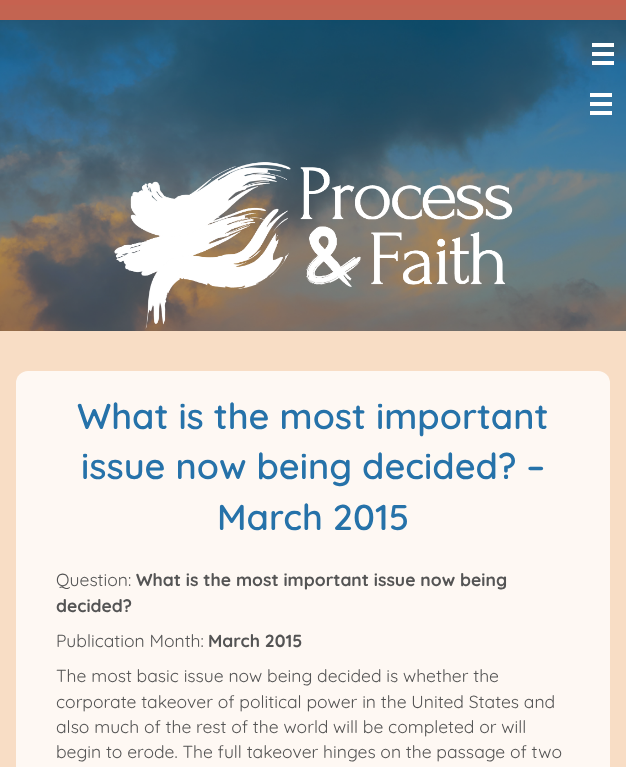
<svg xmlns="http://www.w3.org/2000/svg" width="626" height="767">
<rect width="100%" height="100%" fill="#c66250"/>
<image x="0" y="20" width="626" height="311" href="media/1.png"/>
<rect y="5" width="626" height="15" fill="#c36451"/>
<rect x="592" y="43" width="22" height="4" fill="#fff"/>
<rect x="592" y="52" width="22" height="4" fill="#fff"/>
<rect x="592" y="61" width="22" height="4" fill="#fff"/>
<rect x="590" y="93" width="22" height="4" fill="#fff"/>
<rect x="590" y="102" width="22" height="4" fill="#fff"/>
<rect x="590" y="111" width="22" height="4" fill="#fff"/>
<image x="114" y="162" width="399" height="167" href="media/2.png"/>
<rect y="331" width="626" height="436" fill="#f8ddc5"/>
<rect x="16" y="371" width="594" height="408" rx="12" fill="#fef8f3"/>
<text x="77" y="429" style="font-family:Quicksand;font-size:36px;font-weight:600;fill:#2672a9">What is the most important</text>
<text x="81" y="479" style="font-family:Quicksand;font-size:36px;font-weight:600;fill:#2672a9">issue now being decided? –</text>
<text x="217" y="530" style="font-family:Quicksand;font-size:36px;font-weight:600;fill:#2672a9">March 2015</text>
<text x="56" y="586" style="font-family:Quicksand;font-size:17.5px;fill:#545454">Question:</text>
<text x="136" y="586" style="font-family:Quicksand;font-size:17.5px;font-weight:bold;fill:#545454">What is the most important issue now being</text>
<text x="56" y="612" style="font-family:Quicksand;font-size:17.5px;font-weight:bold;fill:#545454">decided?</text>
<text x="56" y="647" style="font-family:Quicksand;font-size:17.5px;fill:#545454">Publication Month:</text>
<text x="208" y="647" style="font-family:Quicksand;font-size:17.5px;font-weight:bold;fill:#545454">March 2015</text>
<text x="56" y="682" style="font-family:Quicksand;font-size:17.5px;fill:#545454">The most basic issue now being decided is whether the</text>
<text x="56" y="708" style="font-family:Quicksand;font-size:17.5px;fill:#545454">corporate takeover of political power in the United States and</text>
<text x="56" y="733" style="font-family:Quicksand;font-size:17.5px;fill:#545454">also much of the rest of the world will be completed or will</text>
<text x="56" y="758" style="font-family:Quicksand;font-size:17.5px;fill:#545454">begin to erode. The full takeover hinges on the passage of two</text>
</svg>
